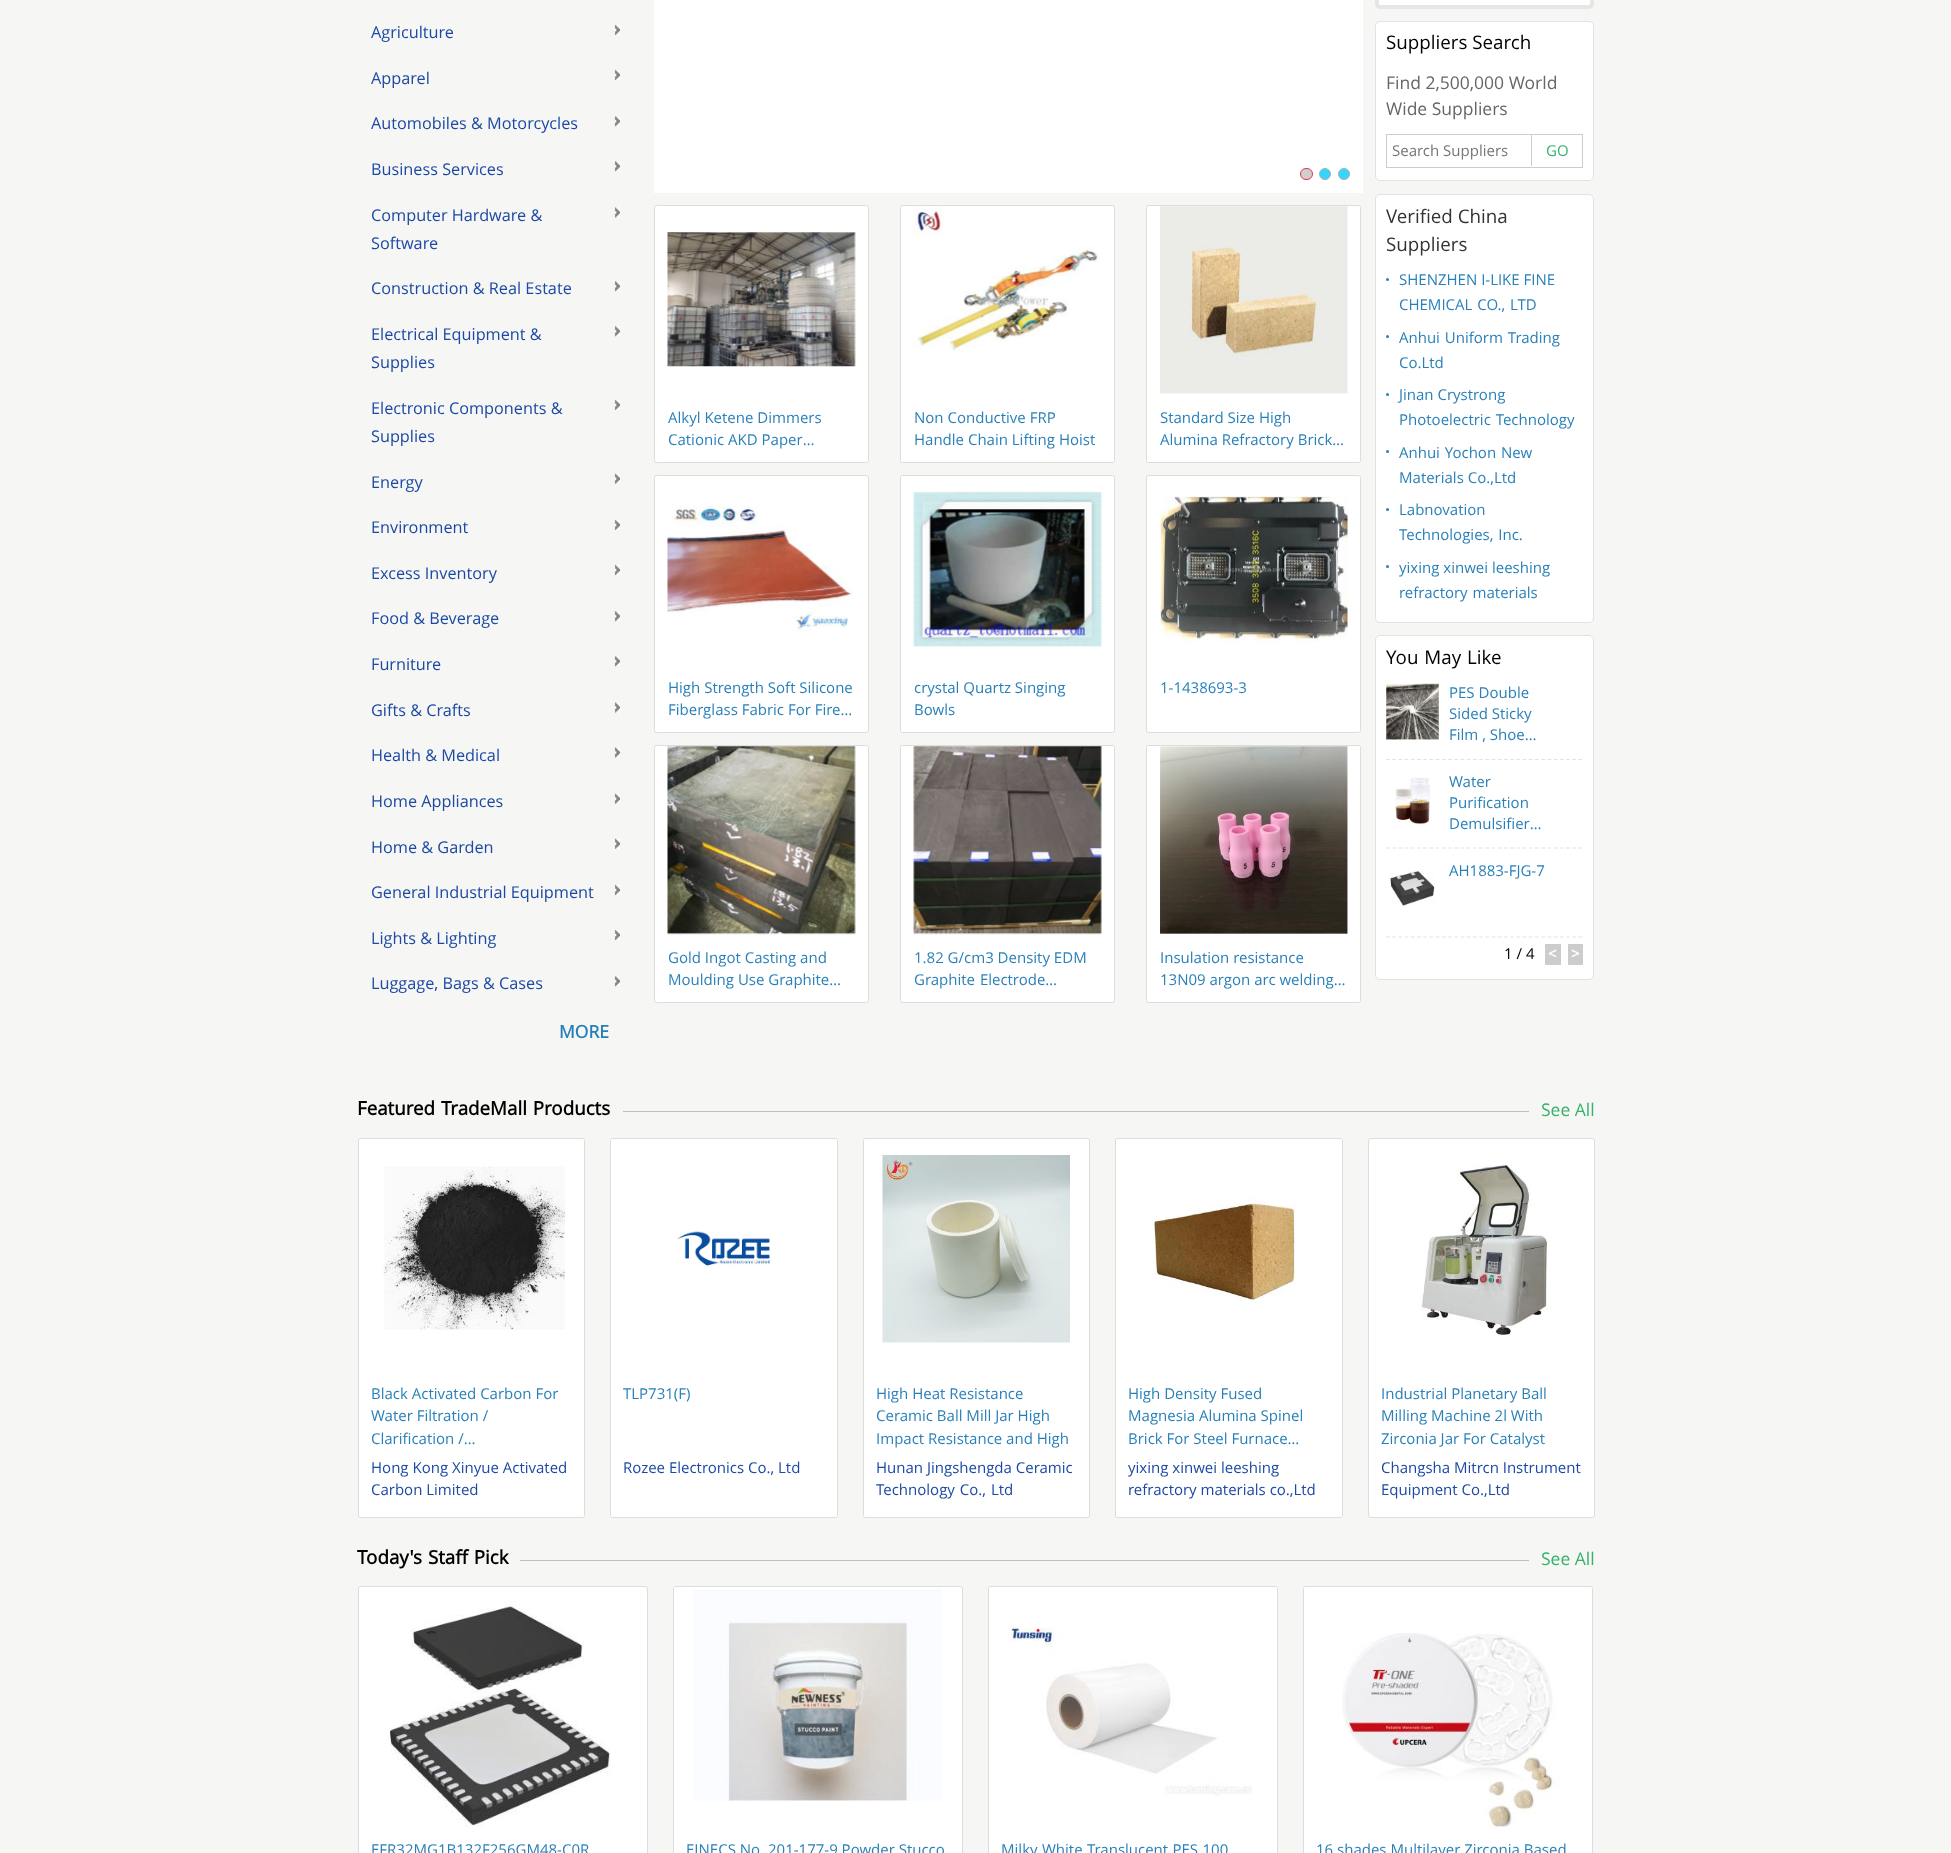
<svg xmlns="http://www.w3.org/2000/svg" width="1951" height="1853">
<rect width="100%" height="100%" fill="#f6f6f4"/>
<text x="371" y="38" style="font-family:Open Sans;font-size:16.25px;fill:#1c49a4">Agriculture</text>
<image x="614" y="24" width="6" height="11" href="media/1.png"/>
<text x="371" y="84" style="font-family:Open Sans;font-size:16.25px;fill:#1c49a4">Apparel</text>
<image x="614" y="69" width="6" height="11" href="media/1.png"/>
<text x="371" y="129" style="font-family:Open Sans;font-size:16.25px;fill:#1c49a4">Automobiles &amp; Motorcycles</text>
<image x="614" y="116" width="6" height="11" href="media/2.png"/>
<text x="371" y="175" style="font-family:Open Sans;font-size:16.25px;fill:#1c49a4">Business Services</text>
<image x="614" y="161" width="6" height="11" href="media/2.png"/>
<text x="371" y="221" style="font-family:Open Sans;font-size:16.25px;fill:#1c49a4">Computer Hardware &amp;</text>
<image x="614" y="207" width="6" height="11" href="media/3.png"/>
<text x="371" y="249" style="font-family:Open Sans;font-size:16.25px;fill:#1c49a4">Software</text>
<text x="371" y="294" style="font-family:Open Sans;font-size:16.25px;fill:#1c49a4">Construction &amp; Real Estate</text>
<image x="614" y="281" width="6" height="11" href="media/2.png"/>
<text x="371" y="340" style="font-family:Open Sans;font-size:16.25px;fill:#1c49a4">Electrical Equipment &amp;</text>
<image x="614" y="326" width="6" height="11" href="media/2.png"/>
<text x="371" y="368" style="font-family:Open Sans;font-size:16.25px;fill:#1c49a4">Supplies</text>
<text x="371" y="414" style="font-family:Open Sans;font-size:16.25px;fill:#1c49a4">Electronic Components &amp;</text>
<image x="614" y="399" width="6" height="11" href="media/1.png"/>
<text x="371" y="442" style="font-family:Open Sans;font-size:16.25px;fill:#1c49a4">Supplies</text>
<text x="371" y="488" style="font-family:Open Sans;font-size:16.25px;fill:#1c49a4">Energy</text>
<image x="614" y="473" width="6" height="11" href="media/4.png"/>
<text x="371" y="533" style="font-family:Open Sans;font-size:16.25px;fill:#1c49a4">Environment</text>
<image x="614" y="519" width="6" height="11" href="media/1.png"/>
<text x="371" y="579" style="font-family:Open Sans;font-size:16.25px;fill:#1c49a4">Excess Inventory</text>
<image x="614" y="564" width="6" height="11" href="media/1.png"/>
<text x="371" y="624" style="font-family:Open Sans;font-size:16.25px;fill:#1c49a4">Food &amp; Beverage</text>
<image x="614" y="611" width="6" height="11" href="media/2.png"/>
<text x="371" y="670" style="font-family:Open Sans;font-size:16.25px;fill:#1c49a4">Furniture</text>
<image x="614" y="656" width="6" height="11" href="media/2.png"/>
<text x="371" y="716" style="font-family:Open Sans;font-size:16.25px;fill:#1c49a4">Gifts &amp; Crafts</text>
<image x="614" y="702" width="6" height="11" href="media/3.png"/>
<text x="371" y="761" style="font-family:Open Sans;font-size:16.25px;fill:#1c49a4">Health &amp; Medical</text>
<image x="614" y="747" width="6" height="11" href="media/3.png"/>
<text x="371" y="807" style="font-family:Open Sans;font-size:16.25px;fill:#1c49a4">Home Appliances</text>
<image x="614" y="793" width="6" height="11" href="media/4.png"/>
<text x="371" y="853" style="font-family:Open Sans;font-size:16.25px;fill:#1c49a4">Home &amp; Garden</text>
<image x="614" y="838" width="6" height="11" href="media/4.png"/>
<text x="371" y="898" style="font-family:Open Sans;font-size:16.25px;fill:#1c49a4">General Industrial Equipment</text>
<image x="614" y="884" width="6" height="11" href="media/1.png"/>
<text x="371" y="944" style="font-family:Open Sans;font-size:16.25px;fill:#1c49a4">Lights &amp; Lighting</text>
<image x="614" y="929" width="6" height="11" href="media/1.png"/>
<text x="371" y="989" style="font-family:Open Sans;font-size:16.25px;fill:#1c49a4">Luggage, Bags &amp; Cases</text>
<image x="614" y="976" width="6" height="11" href="media/2.png"/>
<text x="559" y="1038" style="font-family:Open Sans;font-size:17.5px;font-weight:bold;fill:#2980b9">MORE</text>
<rect x="654" width="709" height="193" fill="#fff"/>
<rect x="1300.5" y="168.5" width="12" height="11" rx="5.5" fill="#cfcfcf" stroke="#eb3341"/>
<circle cx="1325" cy="174" r="5.5" fill="#33d6ff" stroke="#adadad"/>
<circle cx="1344" cy="174" r="5.5" fill="#33d6ff" stroke="#adadad"/>
<rect x="654.5" y="205.5" width="214" height="257" rx="2" fill="#fff" stroke="#ddd"/>
<image x="667" y="230" width="189" height="137" href="media/5.png"/>
<text x="668" y="423" style="font-family:Open Sans;font-size:15px;fill:#2980b9">Alkyl Ketene Dimmers</text>
<text x="668" y="445" style="font-family:Open Sans;font-size:15px;fill:#2980b9">Cationic AKD Paper…</text>
<rect x="900.5" y="205.5" width="214" height="257" rx="2" fill="#fff" stroke="#ddd"/>
<image x="913" y="206" width="186" height="148" href="media/6.png"/>
<text x="914" y="423" style="font-family:Open Sans;font-size:15px;fill:#2980b9">Non Conductive FRP</text>
<text x="914" y="445" style="font-family:Open Sans;font-size:15px;fill:#2980b9">Handle Chain Lifting Hoist</text>
<rect x="1146.5" y="205.5" width="214" height="257" rx="2" fill="#fff" stroke="#ddd"/>
<image x="1160" y="206" width="188" height="188" href="media/7.png"/>
<text x="1160" y="423" style="font-family:Open Sans;font-size:15px;fill:#2980b9">Standard Size High</text>
<text x="1160" y="445" style="font-family:Open Sans;font-size:15px;fill:#2980b9">Alumina Refractory Brick…</text>
<rect x="654.5" y="475.5" width="214" height="257" rx="2" fill="#fff" stroke="#ddd"/>
<image x="667" y="506" width="186" height="126" href="media/8.png"/>
<text x="668" y="693" style="font-family:Open Sans;font-size:15px;fill:#2980b9">High Strength Soft Silicone</text>
<text x="668" y="715" style="font-family:Open Sans;font-size:15px;fill:#2980b9">Fiberglass Fabric For Fire…</text>
<rect x="900.5" y="475.5" width="214" height="257" rx="2" fill="#fff" stroke="#ddd"/>
<image x="913" y="491" width="189" height="156" href="media/9.png"/>
<text x="914" y="693" style="font-family:Open Sans;font-size:15px;fill:#2980b9">crystal Quartz Singing</text>
<text x="914" y="715" style="font-family:Open Sans;font-size:15px;fill:#2980b9">Bowls</text>
<rect x="1146.5" y="475.5" width="214" height="257" rx="2" fill="#fff" stroke="#ddd"/>
<image x="1160" y="496" width="188" height="148" href="media/10.png"/>
<text x="1160" y="693" style="font-family:Open Sans;font-size:15px;fill:#2980b9">1-1438693-3</text>
<rect x="654.5" y="745.5" width="214" height="257" rx="2" fill="#fff" stroke="#ddd"/>
<image x="667" y="746" width="189" height="189" href="media/11.png"/>
<text x="668" y="963" style="font-family:Open Sans;font-size:15px;fill:#2980b9">Gold Ingot Casting and</text>
<text x="668" y="985" style="font-family:Open Sans;font-size:15px;fill:#2980b9">Moulding Use Graphite…</text>
<rect x="900.5" y="745.5" width="214" height="257" rx="2" fill="#fff" stroke="#ddd"/>
<image x="913" y="746" width="189" height="189" href="media/12.png"/>
<text x="914" y="963" style="font-family:Open Sans;font-size:15px;fill:#2980b9">1.82 G/cm3 Density EDM</text>
<text x="914" y="985" word-spacing="1" style="font-family:Open Sans;font-size:15px;fill:#2980b9">Graphite Electrode…</text>
<rect x="1146.5" y="745.5" width="214" height="257" rx="2" fill="#fff" stroke="#ddd"/>
<image x="1160" y="746" width="188" height="188" href="media/13.png"/>
<text x="1160" y="963" style="font-family:Open Sans;font-size:15px;fill:#2980b9">Insulation resistance</text>
<text x="1160" y="985" style="font-family:Open Sans;font-size:15px;fill:#2980b9">13N09 argon arc welding…</text>
<rect x="1377" y="-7" width="215" height="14" rx="3" fill="#fff" stroke="#e6e6e6" stroke-width="4"/>
<rect x="1375.5" y="21.5" width="218" height="159" rx="4.5" fill="#fff" stroke="#e2e2e6"/>
<text x="1386" y="49" style="font-family:Open Sans;font-size:18.75px;fill:#000">Suppliers Search</text>
<text x="1386" y="89" style="font-family:Open Sans;font-size:17.5px;fill:#666">Find 2,500,000 World</text>
<text x="1386" y="115" style="font-family:Open Sans;font-size:17.5px;fill:#666">Wide Suppliers</text>
<rect x="1386.5" y="134.5" width="196" height="33" fill="none" stroke="#ccc"/>
<text x="1392" y="156" style="font-family:Open Sans;font-size:15px;fill:#757575">Search Suppliers</text>
<rect x="1531" y="135" width="1" height="31" fill="#ccc"/>
<text x="1546" y="156" style="font-family:Open Sans;font-size:15px;fill:#35b16c">GO</text>
<rect x="1375.5" y="194.5" width="218" height="428" rx="4.5" fill="#fff" stroke="#e2e2e6"/>
<text x="1386" y="223" style="font-family:Open Sans;font-size:18.75px;fill:#333">Verified China</text>
<text x="1386" y="251" style="font-family:Open Sans;font-size:18.75px;fill:#333">Suppliers</text>
<circle cx="1387.5" cy="279.5" r="1.5" fill="#2980b9"/>
<text x="1399" y="285" style="font-family:Open Sans;font-size:15px;fill:#2980b9">SHENZHEN I-LIKE FINE</text>
<text x="1399" y="310" word-spacing="1" style="font-family:Open Sans;font-size:15px;fill:#2980b9">CHEMICAL CO., LTD</text>
<circle cx="1387.5" cy="336.5" r="1.5" fill="#2980b9"/>
<text x="1399" y="343" word-spacing="1" style="font-family:Open Sans;font-size:15px;fill:#2980b9">Anhui Uniform Trading</text>
<text x="1399" y="368" style="font-family:Open Sans;font-size:15px;fill:#2980b9">Co.Ltd</text>
<circle cx="1387.5" cy="394.5" r="1.5" fill="#2980b9"/>
<text x="1399" y="400" style="font-family:Open Sans;font-size:15px;fill:#2980b9">Jinan Crystrong</text>
<text x="1399" y="425" word-spacing="1" style="font-family:Open Sans;font-size:15px;fill:#2980b9">Photoelectric Technology</text>
<circle cx="1387.5" cy="451.5" r="1.5" fill="#2980b9"/>
<text x="1399" y="458" word-spacing="1" style="font-family:Open Sans;font-size:15px;fill:#2980b9">Anhui Yochon New</text>
<text x="1399" y="483" style="font-family:Open Sans;font-size:15px;fill:#2980b9">Materials Co.,Ltd</text>
<circle cx="1387.5" cy="509.5" r="1.5" fill="#2980b9"/>
<text x="1399" y="515" style="font-family:Open Sans;font-size:15px;fill:#2980b9">Labnovation</text>
<text x="1399" y="540" word-spacing="1" style="font-family:Open Sans;font-size:15px;fill:#2980b9">Technologies, Inc.</text>
<circle cx="1387.5" cy="566.5" r="1.5" fill="#2980b9"/>
<text x="1399" y="573" style="font-family:Open Sans;font-size:15px;fill:#2980b9">yixing xinwei leeshing</text>
<text x="1399" y="598" word-spacing="1" style="font-family:Open Sans;font-size:15px;fill:#2980b9">refractory materials</text>
<rect x="1375.5" y="635.5" width="218" height="344" rx="4.5" fill="#fff" stroke="#e2e2e6"/>
<text x="1386" y="664" word-spacing="1" style="font-family:Open Sans;font-size:18.75px;fill:#000">You May Like</text>
<path d="M1386 759.5h196.5" fill="none" stroke="#e2e2e6" stroke-width="1.2" stroke-dasharray="3.75 2.46"/>
<image x="1386" y="683" width="53" height="57" href="media/14.png"/>
<text x="1449" y="698" style="font-family:Open Sans;font-size:15px;fill:#2980b9">PES Double</text>
<text x="1449" y="719" style="font-family:Open Sans;font-size:15px;fill:#2980b9">Sided Sticky</text>
<text x="1449" y="740" style="font-family:Open Sans;font-size:15px;fill:#2980b9">Film , Shoe…</text>
<path d="M1386 848h196.5" fill="none" stroke="#e2e2e6" stroke-width="1.2" stroke-dasharray="3.75 2.46"/>
<image x="1395" y="777" width="35" height="48" href="media/15.png"/>
<text x="1449" y="787" style="font-family:Open Sans;font-size:15px;fill:#2980b9">Water</text>
<text x="1449" y="808" style="font-family:Open Sans;font-size:15px;fill:#2980b9">Purification</text>
<text x="1449" y="829" style="font-family:Open Sans;font-size:15px;fill:#2980b9">Demulsifier…</text>
<path d="M1386 937h196.5" fill="none" stroke="#e2e2e6" stroke-width="1.2" stroke-dasharray="3.75 2.46"/>
<image x="1390" y="871" width="45" height="35" href="media/16.png"/>
<text x="1449" y="876" style="font-family:Open Sans;font-size:15px;fill:#2980b9">AH1883-FJG-7</text>
<text x="1504" y="959" style="font-family:Open Sans;font-size:15px;fill:#000">1 / 4</text>
<rect x="1545" y="944" width="16" height="21" fill="#ccc"/>
<text x="1548" y="959" style="font-family:Open Sans;font-size:15px;font-weight:bold;fill:#fff">&lt;</text>
<rect x="1568" y="944" width="15" height="21" fill="#ccc"/>
<text x="1571" y="959" style="font-family:Open Sans;font-size:15px;font-weight:bold;fill:#fff">&gt;</text>
<text x="357" y="1115" word-spacing="1" style="font-family:Open Sans;font-size:18.75px;font-weight:bold;fill:#000">Featured TradeMall Products</text>
<rect x="623" y="1111" width="906" height="1" fill="#bebebe"/>
<text x="1541" y="1116" style="font-family:Open Sans;font-size:17.5px;fill:#35b16c">See All</text>
<rect x="358.5" y="1138.5" width="226" height="379" rx="2" fill="#fff" stroke="#ddd"/>
<image x="382" y="1165" width="183" height="165" href="media/17.png"/>
<text x="371" y="1399" style="font-family:Open Sans;font-size:15px;fill:#2980b9">Black Activated Carbon For</text>
<text x="371" y="1421" style="font-family:Open Sans;font-size:15px;fill:#2980b9">Water Filtration /</text>
<text x="371" y="1444" style="font-family:Open Sans;font-size:15px;fill:#2980b9">Clarification /…</text>
<text x="371" y="1473" style="font-family:Open Sans;font-size:15px;fill:#1c49a4">Hong Kong Xinyue Activated</text>
<text x="371" y="1495" style="font-family:Open Sans;font-size:15px;fill:#1c49a4">Carbon Limited</text>
<rect x="610.5" y="1138.5" width="227" height="379" rx="2" fill="#fff" stroke="#ddd"/>
<image x="677" y="1231" width="93" height="35" href="media/18.png"/>
<text x="623" y="1399" style="font-family:Open Sans;font-size:15px;fill:#2980b9">TLP731(F)</text>
<text x="623" y="1473" style="font-family:Open Sans;font-size:15px;fill:#1c49a4">Rozee Electronics Co., Ltd</text>
<rect x="863.5" y="1138.5" width="226" height="379" rx="2" fill="#fff" stroke="#ddd"/>
<image x="882" y="1155" width="188" height="188" href="media/19.png"/>
<text x="876" y="1399" style="font-family:Open Sans;font-size:15px;fill:#2980b9">High Heat Resistance</text>
<text x="876" y="1421" style="font-family:Open Sans;font-size:15px;fill:#2980b9">Ceramic Ball Mill Jar High</text>
<text x="876" y="1444" style="font-family:Open Sans;font-size:15px;fill:#2980b9">Impact Resistance and High</text>
<text x="876" y="1473" style="font-family:Open Sans;font-size:15px;fill:#1c49a4">Hunan Jingshengda Ceramic</text>
<text x="876" y="1495" word-spacing="1" style="font-family:Open Sans;font-size:15px;fill:#1c49a4">Technology Co., Ltd</text>
<rect x="1115.5" y="1138.5" width="227" height="379" rx="2" fill="#fff" stroke="#ddd"/>
<image x="1151" y="1196" width="144" height="108" href="media/20.png"/>
<text x="1128" y="1399" style="font-family:Open Sans;font-size:15px;fill:#2980b9">High Density Fused</text>
<text x="1128" y="1421" style="font-family:Open Sans;font-size:15px;fill:#2980b9">Magnesia Alumina Spinel</text>
<text x="1128" y="1444" style="font-family:Open Sans;font-size:15px;fill:#2980b9">Brick For Steel Furnace…</text>
<text x="1128" y="1473" style="font-family:Open Sans;font-size:15px;fill:#1c49a4">yixing xinwei leeshing</text>
<text x="1128" y="1495" style="font-family:Open Sans;font-size:15px;fill:#1c49a4">refractory materials co.,Ltd</text>
<rect x="1368.5" y="1138.5" width="226" height="379" rx="2" fill="#fff" stroke="#ddd"/>
<image x="1418" y="1165" width="130" height="170" href="media/21.png"/>
<text x="1381" y="1399" style="font-family:Open Sans;font-size:15px;fill:#2980b9">Industrial Planetary Ball</text>
<text x="1381" y="1421" style="font-family:Open Sans;font-size:15px;fill:#2980b9">Milling Machine 2l With</text>
<text x="1381" y="1444" style="font-family:Open Sans;font-size:15px;fill:#2980b9">Zirconia Jar For Catalyst</text>
<text x="1381" y="1473" style="font-family:Open Sans;font-size:15px;fill:#1c49a4">Changsha Mitrcn Instrument</text>
<text x="1381" y="1495" style="font-family:Open Sans;font-size:15px;fill:#1c49a4">Equipment Co.,Ltd</text>
<text x="357" y="1564" word-spacing="1" style="font-family:Open Sans;font-size:18.75px;font-weight:bold;fill:#000">Today's Staff Pick</text>
<rect x="520" y="1560" width="1009" height="1" fill="#bebebe"/>
<text x="1541" y="1565" style="font-family:Open Sans;font-size:17.5px;fill:#35b16c">See All</text>
<rect x="358.5" y="1586.5" width="289" height="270" rx="2" fill="#fff" stroke="#ddd"/>
<image x="385" y="1601" width="226" height="226" href="media/22.png"/>
<text x="371" y="1855" style="font-family:Open Sans;font-size:15px;fill:#2980b9">EFR32MG1B132F256GM48-C0R</text>
<rect x="673.5" y="1586.5" width="289" height="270" rx="2" fill="#fff" stroke="#ddd"/>
<image x="693" y="1589" width="249" height="212" href="media/23.png"/>
<text x="686" y="1855" style="font-family:Open Sans;font-size:15px;fill:#2980b9">EINECS No. 201-177-9 Powder Stucco</text>
<rect x="988.5" y="1586.5" width="289" height="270" rx="2" fill="#fff" stroke="#ddd"/>
<image x="1007" y="1627" width="245" height="169" href="media/24.png"/>
<text x="1001" y="1855" word-spacing="0.5" style="font-family:Open Sans;font-size:15px;fill:#2980b9">Milky White Translucent PES 100</text>
<rect x="1303.5" y="1586.5" width="289" height="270" rx="2" fill="#fff" stroke="#ddd"/>
<image x="1342" y="1633" width="218" height="195" href="media/25.png"/>
<text x="1316" y="1855" style="font-family:Open Sans;font-size:15px;fill:#2980b9">16 shades Multilayer Zirconia Based</text>
</svg>
